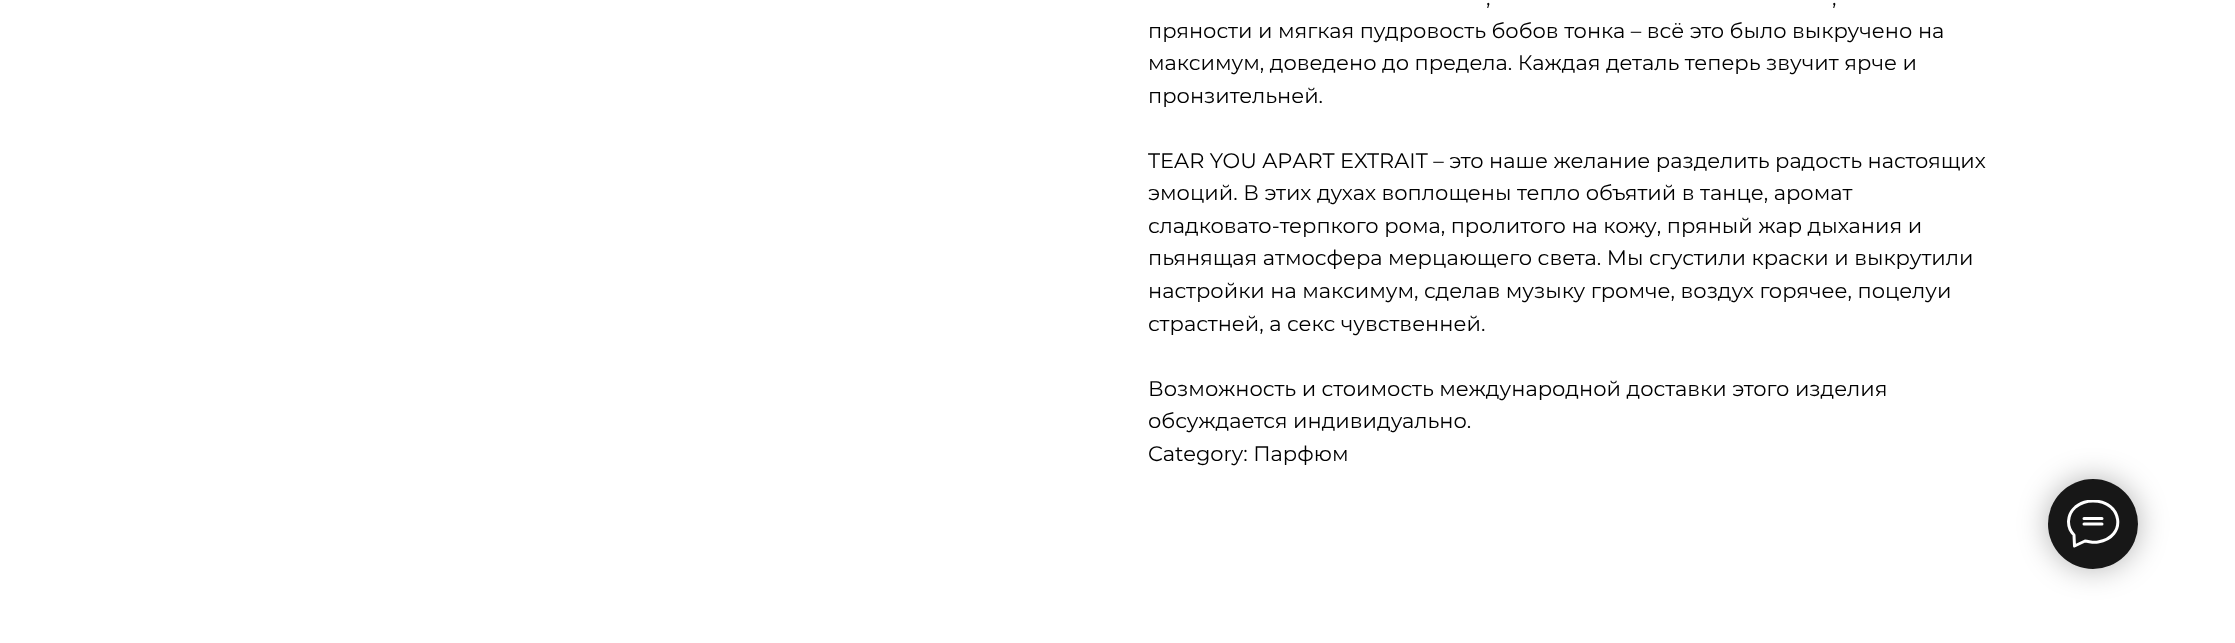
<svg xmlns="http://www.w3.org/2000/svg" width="2235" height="643">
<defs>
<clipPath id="clip1"><rect x="2067" y="500" width="53" height="48"/></clipPath>
</defs>
<rect width="100%" height="100%" fill="#fff"/>
<text x="1486" y="5" style="font-family:Montserrat;font-size:21px;fill:#000">,</text>
<text x="1832" y="5" style="font-family:Montserrat;font-size:21px;fill:#000">,</text>
<text x="1148" y="38" style="font-family:Montserrat;font-size:21px;fill:#000">пряности и мягкая пудровость бобов тонка – всё это было выкручено на</text>
<text x="1148" y="70" style="font-family:Montserrat;font-size:21px;fill:#000">максимум, доведено до предела. Каждая деталь теперь звучит ярче и</text>
<text x="1148" y="103" style="font-family:Montserrat;font-size:21px;fill:#000">пронзительней.</text>
<text x="1148" y="168" style="font-family:Montserrat;font-size:21px;fill:#000">TEAR YOU APART EXTRAIT – это наше желание разделить радость настоящих</text>
<text x="1148" y="200" style="font-family:Montserrat;font-size:21px;fill:#000">эмоций. В этих духах воплощены тепло объятий в танце, аромат</text>
<text x="1148" y="233" style="font-family:Montserrat;font-size:21px;fill:#000">сладковато-терпкого рома, пролитого на кожу, пряный жар дыхания и</text>
<text x="1148" y="265" style="font-family:Montserrat;font-size:21px;fill:#000">пьянящая атмосфера мерцающего света. Мы сгустили краски и выкрутили</text>
<text x="1148" y="298" style="font-family:Montserrat;font-size:21px;fill:#000">настройки на максимум, сделав музыку громче, воздух горячее, поцелуи</text>
<text x="1148" y="331" style="font-family:Montserrat;font-size:21px;fill:#000">страстней, а секс чувственней.</text>
<text x="1148" y="396" style="font-family:Montserrat;font-size:21px;fill:#000">Возможность и стоимость международной доставки этого изделия</text>
<text x="1148" y="428" style="font-family:Montserrat;font-size:21px;fill:#000">обсуждается индивидуально.</text>
<text x="1148" y="461" style="font-family:Montserrat;font-size:21px;fill:#000">Category: Парфюм</text>
<rect x="2048" y="479" width="90" height="90" rx="45" fill="#0000004d" filter="blur(15px)"/>
<circle cx="2093" cy="524" r="45" fill="#171717"/>
<g clip-path="url(#clip1)">
<path d="M2084 518.5h18m-18 5.5h18m-28 11c-8-8-7-20.5 1.5-28c5-4 11.5-6 17.5-6c29.5 0 34.5 36 5 41c-5 1-8-.5-13-1l-10.5 5z" fill="none" stroke="#fff" stroke-width="3" stroke-linecap="round" stroke-linejoin="round"/>
</g>
</svg>
